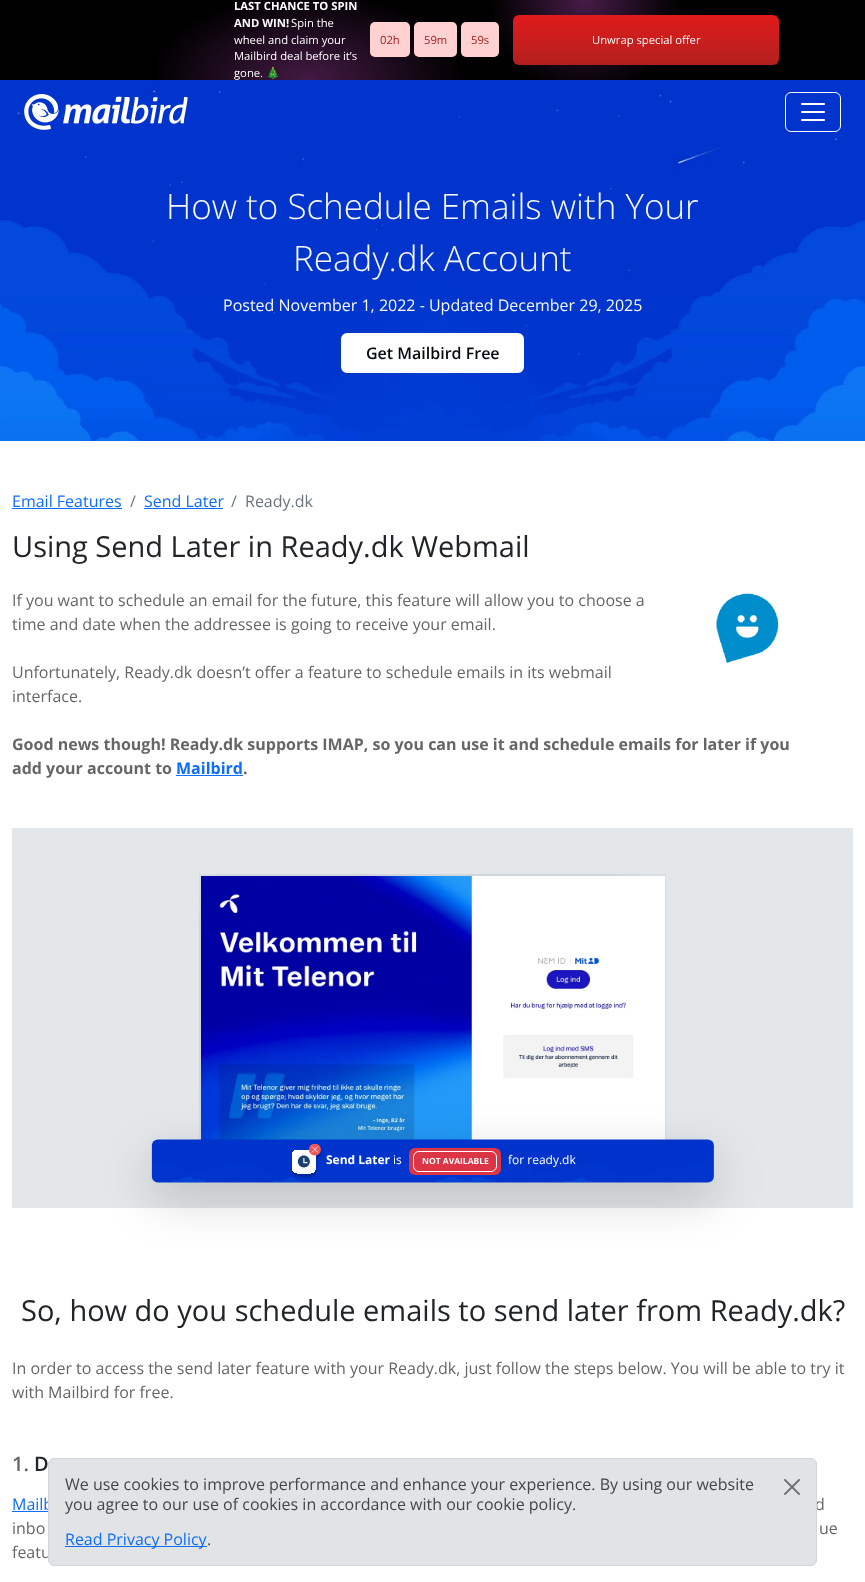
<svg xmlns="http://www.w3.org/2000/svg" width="865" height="1582">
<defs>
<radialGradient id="g1" gradientUnits="userSpaceOnUse" cx="585" cy="0" r="96"><stop offset="0" stop-color="#652766"/><stop offset="1" stop-color="#000"/></radialGradient>
<radialGradient id="g2" gradientUnits="userSpaceOnUse" cx="0" cy="0" r="1" gradientTransform="matrix(158 0 0 89 308 80)"><stop offset="0" stop-color="#e156e3" stop-opacity="0.3"/><stop offset="1" stop-color="#000" stop-opacity="0.3"/></radialGradient>
<linearGradient id="g3" gradientUnits="userSpaceOnUse" x1="646" y1="15" x2="646" y2="83"><stop offset="0" stop-color="#e11b1b"/><stop offset="1" stop-color="#a1221f"/></linearGradient>
</defs>
<rect width="100%" height="100%" fill="#fff"/>
<rect width="865" height="80" fill="url(#g1)"/>
<rect x="156" width="517" height="80" fill="url(#g2)"/>
<text x="234" y="10" style="font-family:Open Sans;font-size:11.25px;font-weight:bold;fill:#fff">LAST CHANCE TO SPIN</text>
<text x="234" y="27" style="font-family:Open Sans;font-size:11.25px;font-weight:bold;fill:#fff">AND WIN!</text>
<text x="291" y="27" style="font-family:Open Sans;font-size:11.25px;fill:#fff">Spin the</text>
<text x="234" y="44" style="font-family:Open Sans;font-size:11.25px;fill:#fff">wheel and claim your</text>
<text x="234" y="60" style="font-family:Open Sans;font-size:11.25px;fill:#fff">Mailbird deal before it’s</text>
<text x="234" y="77" style="font-family:Open Sans;font-size:11.25px;fill:#fff">gone.</text>
<text x="266" y="77" style="font-family:Noto Color Emoji;font-size:11.25px;fill:#fff">🎄</text>
<rect x="370" y="22" width="40" height="35" rx="5" fill="#ffd1d1"/>
<text x="380" y="44" style="font-family:Open Sans;font-size:11.25px;fill:#a1221f">02h</text>
<rect x="414" y="22" width="43" height="35" rx="5" fill="#ffd1d1"/>
<text x="424" y="44" style="font-family:Open Sans;font-size:11.25px;fill:#a1221f">59m</text>
<rect x="461" y="22" width="38" height="35" rx="5" fill="#ffd1d1"/>
<text x="471" y="44" style="font-family:Open Sans;font-size:11.25px;fill:#a1221f">59s</text>
<rect x="513" y="15" width="266" height="50" rx="6" fill="url(#g3)"/>
<text x="592" y="44" style="font-family:Open Sans;font-size:11.25px;fill:#fff">Unwrap special offer</text>
<image x="0" y="80" width="865" height="361" href="media/1.png"/>
<image x="24" y="94" width="164" height="36" href="media/2.png"/>
<rect x="785.5" y="92.5" width="55" height="39" rx="5.5" fill="none" stroke="#fff"/>
<image x="801" y="103" width="24" height="18" href="media/3.png"/>
<text x="166" y="219" style="font-family:Open Sans;font-size:35px;font-weight:300;fill:#f8f9fa">How to Schedule Emails with Your</text>
<text x="293" y="271" style="font-family:Open Sans;font-size:35px;font-weight:300;fill:#f8f9fa">Ready.dk Account</text>
<text x="223" y="311" style="font-family:Open Sans;font-size:16px;fill:#f8f9fa">Posted November 1, 2022 - Updated December 29, 2025</text>
<rect x="342" y="334" width="181" height="38" rx="5" fill="#fff" stroke="#fff" stroke-width="2"/>
<text x="366" y="359" style="font-family:Open Sans;font-size:16px;font-weight:600;fill:#070d0d">Get Mailbird Free</text>
<text x="12" y="507" style="font-family:Open Sans;font-size:16px;fill:#0d6efd">Email Features</text>
<rect x="12" y="508" width="110" height="1" fill="#0d6efd"/>
<text x="130" y="507" style="font-family:Open Sans;font-size:16px;fill:#6c757d">/</text>
<text x="144" y="507" style="font-family:Open Sans;font-size:16px;fill:#0d6efd">Send Later</text>
<rect x="144" y="508" width="79" height="1" fill="#0d6efd"/>
<text x="231" y="507" style="font-family:Open Sans;font-size:16px;fill:#6c757d">/</text>
<text x="245" y="507" style="font-family:Open Sans;font-size:16px;fill:#6c757d">Ready.dk</text>
<text x="12" y="557" style="font-family:Open Sans;font-size:29px;fill:#212529">Using Send Later in Ready.dk Webmail</text>
<text x="12" y="606" style="font-family:Open Sans;font-size:16px;fill:#666">If you want to schedule an email for the future, this feature will allow you to choose a</text>
<text x="12" y="630" style="font-family:Open Sans;font-size:16px;fill:#666">time and date when the addressee is going to receive your email.</text>
<text x="12" y="678" style="font-family:Open Sans;font-size:16px;fill:#666">Unfortunately, Ready.dk doesn’t offer a feature to schedule emails in its webmail</text>
<text x="12" y="702" style="font-family:Open Sans;font-size:16px;fill:#666">interface.</text>
<text x="12" y="750" style="font-family:Open Sans;font-size:16px;font-weight:bold;fill:#666">Good news though! Ready.dk supports IMAP, so you can use it and schedule emails for later if you</text>
<text x="12" y="774" style="font-family:Open Sans;font-size:16px;font-weight:bold;fill:#666">add your account to</text>
<text x="176" y="774" style="font-family:Open Sans;font-size:16px;font-weight:bold;fill:#0d6efd">Mailbird</text>
<text x="243" y="774" style="font-family:Open Sans;font-size:16px;font-weight:bold;fill:#666">.</text>
<rect x="176" y="775" width="67" height="1" fill="#0d6efd"/>
<image x="716" y="593" width="63" height="70" href="media/4.png"/>
<rect x="12" y="828" width="841" height="380" fill="#e3e7ea"/>
<image x="199" y="874" width="467" height="266" href="media/5.png"/>
<rect x="152" y="1156" width="562" height="43" rx="6" fill="#0000002e" filter="blur(24px)"/>
<image x="151" y="1139" width="563" height="44" href="media/6.png"/>
<image x="291" y="1144" width="31" height="34" href="media/7.png"/>
<text x="326" y="1164" style="font-family:Open Sans;font-size:12px;font-weight:bold;fill:#fff">Send Later</text>
<text x="393" y="1164" style="font-family:Open Sans;font-size:12px;fill:#fff">is</text>
<rect x="409" y="1148" width="92" height="27" rx="6" fill="#dc3545"/>
<rect x="413.5" y="1151.5" width="83" height="20" rx="5.5" fill="none" stroke="#fff"/>
<text x="422" y="1164" style="font-family:Open Sans;font-size:8.5px;font-weight:bold;fill:#fff">NOT AVAILABLE</text>
<text x="508" y="1164" style="font-family:Open Sans;font-size:12px;fill:#fff">for ready.dk</text>
<text x="21" y="1321" style="font-family:Open Sans;font-size:29px;fill:#212529">So, how do you schedule emails to send later from Ready.dk?</text>
<text x="12" y="1374" style="font-family:Open Sans;font-size:16px;fill:#666">In order to access the send later feature with your Ready.dk, just follow the steps below. You will be able to try it</text>
<text x="12" y="1398" style="font-family:Open Sans;font-size:16px;fill:#666">with Mailbird for free.</text>
<text x="12" y="1471" style="font-family:Open Sans;font-size:20px;font-weight:600;fill:#666">1.</text>
<text x="34" y="1471" style="font-family:Open Sans;font-size:20px;font-weight:600;fill:#212529">D</text>
<text x="12" y="1510" style="font-family:Open Sans;font-size:16px;fill:#0d6efd">Mailb</text>
<rect x="12" y="1511" width="36" height="1" fill="#0d6efd"/>
<text x="815" y="1510" style="font-family:Open Sans;font-size:16px;fill:#666">d</text>
<text x="12" y="1534" style="font-family:Open Sans;font-size:16px;fill:#666">inbo</text>
<text x="819" y="1534" style="font-family:Open Sans;font-size:16px;fill:#666">ue</text>
<text x="12" y="1558" style="font-family:Open Sans;font-size:16px;fill:#666">featu</text>
<rect x="48.5" y="1458.5" width="768" height="107" rx="5.5" fill="#e2e3e5" stroke="#d3d6d8"/>
<text x="65" y="1490" style="font-family:Open Sans;font-size:16px;fill:#41464b">We use cookies to improve performance and enhance your experience. By using our website</text>
<text x="65" y="1510" style="font-family:Open Sans;font-size:16px;fill:#41464b">you agree to our use of cookies in accordance with our cookie policy.</text>
<image x="784" y="1479" width="16" height="16" href="media/8.png"/>
<rect x="65" y="1546" width="142" height="1" fill="#0d6efd"/>
<text x="65" y="1545" style="font-family:Open Sans;font-size:16px;fill:#0d6efd">Read Privacy Policy</text>
<text x="207" y="1545" style="font-family:Open Sans;font-size:16px;fill:#41464b">.</text>
</svg>
